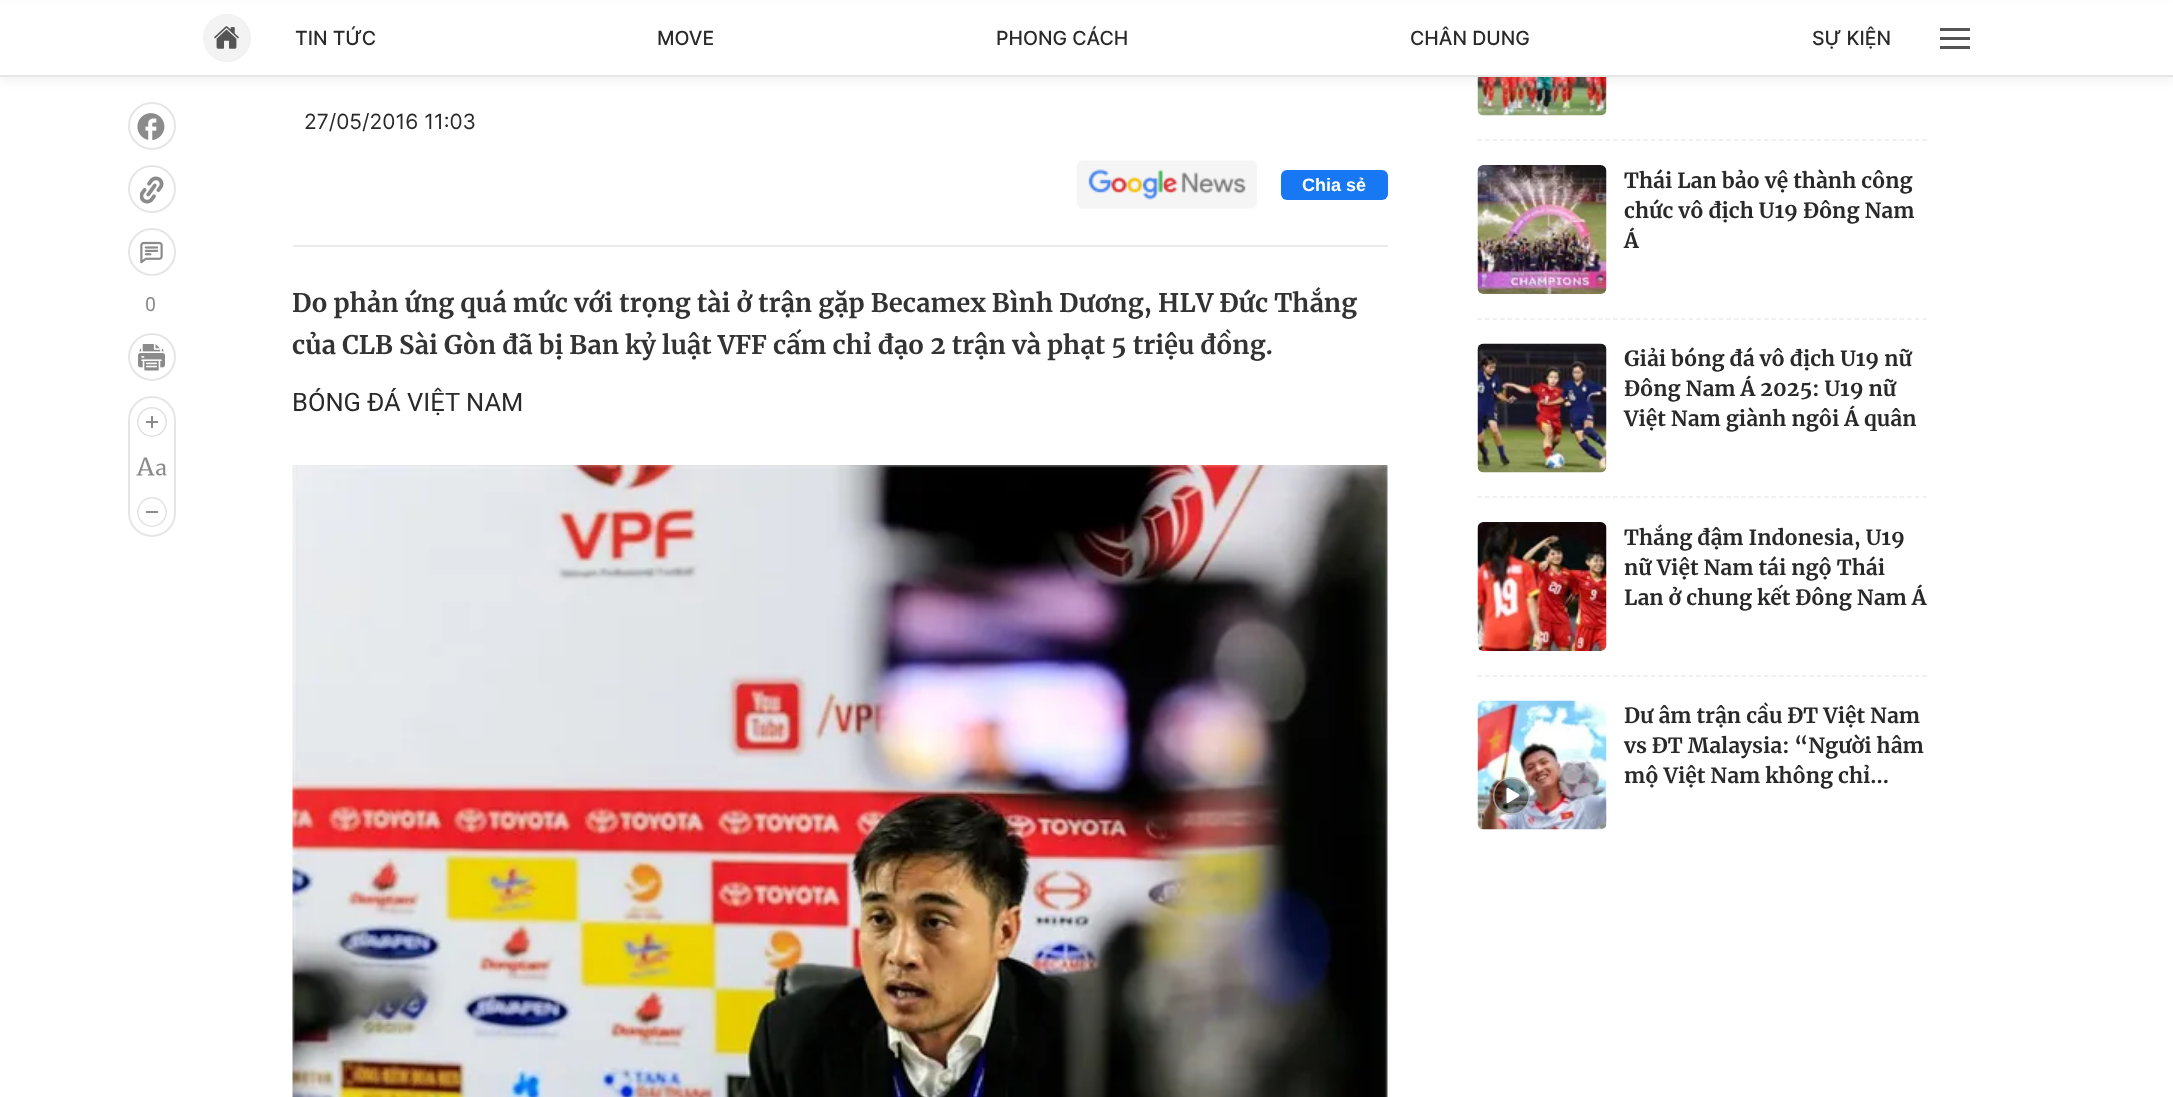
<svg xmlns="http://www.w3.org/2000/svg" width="2173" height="1097">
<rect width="100%" height="100%" fill="#fff"/>
<image x="1477" y="77" width="130" height="39" href="media/9.png"/>
<rect y="6" width="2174" height="77" fill="#0000000a" filter="blur(4.5px)"/>
<rect y="3" width="2173" height="72" fill="#fff"/>
<rect y="75" width="2173" height="2" fill="#e5e5e5"/>
<image x="203" y="14" width="48" height="48" href="media/1.png"/>
<text x="295" y="45" style="font-family:Inter;font-size:19.5px;font-weight:500;fill:#292929">TIN TỨC</text>
<text x="657" y="45" style="font-family:Inter;font-size:19.5px;font-weight:500;fill:#292929">MOVE</text>
<text x="996" y="45" style="font-family:Inter;font-size:19.5px;font-weight:500;fill:#292929">PHONG CÁCH</text>
<text x="1410" y="45" style="font-family:Inter;font-size:19.5px;font-weight:500;fill:#292929">CHÂN DUNG</text>
<text x="1812" y="45" style="font-family:Inter;font-size:19.5px;font-weight:500;fill:#292929">SỰ KIỆN</text>
<rect x="1940" y="28" width="30" height="3" fill="#555"/>
<rect x="1940" y="37" width="30" height="3" fill="#555"/>
<rect x="1940" y="46" width="30" height="3" fill="#555"/>
<circle cx="152" cy="126" r="23" fill="none" stroke="#e6e6e6" stroke-width="2"/>
<image x="137" y="113" width="28" height="27" href="media/2.png"/>
<circle cx="152" cy="189" r="23" fill="none" stroke="#e6e6e6" stroke-width="2"/>
<image x="140" y="176" width="24" height="28" href="media/3.png"/>
<circle cx="152" cy="252" r="23" fill="none" stroke="#e6e6e6" stroke-width="2"/>
<image x="140" y="241" width="23" height="23" href="media/4.png"/>
<text x="145" y="311" style="font-family:Roboto;font-size:19.5px;fill:#8b8b8b">0</text>
<circle cx="152" cy="357" r="23" fill="none" stroke="#e6e6e6" stroke-width="2"/>
<image x="138" y="344" width="27" height="27" href="media/5.png"/>
<rect x="129" y="397" width="46" height="139" rx="23" fill="none" stroke="#e6e6e6" stroke-width="2"/>
<circle cx="152" cy="422" r="14.25" fill="none" stroke="#e2e2e2" stroke-width="1.5"/>
<rect x="146" y="421" width="12" height="2" fill="#8b8b8b"/>
<rect x="151" y="416" width="2" height="12" fill="#8b8b8b"/>
<image x="136" y="457" width="31" height="19" href="media/6.png"/>
<circle cx="152" cy="512" r="14.25" fill="none" stroke="#e2e2e2" stroke-width="1.5"/>
<rect x="146" y="511" width="12" height="2" fill="#8b8b8b"/>
<text x="304" y="129" style="font-family:Inter;font-size:21px;fill:#292929">27/05/2016 11:03</text>
<rect x="293" y="245" width="1095" height="2" fill="#ebebeb"/>
<image x="1077" y="160" width="180" height="49" href="media/7.png"/>
<rect x="1281" y="170" width="107" height="30" rx="6" fill="#1877f2"/>
<text x="1302" y="191" style="font-family:Liberation Sans;font-size:18px;font-weight:bold;fill:#fff">Chia sẻ</text>
<text x="292" y="312" style="font-family:Merriweather;font-size:25.5px;font-weight:bold;fill:#333">Do phản ứng quá mức với trọng tài ở trận gặp Becamex Bình Dương, HLV Đức Thắng</text>
<text x="292" y="354" style="font-family:Merriweather;font-size:25.5px;font-weight:bold;fill:#333">của CLB Sài Gòn đã bị Ban kỷ luật VFF cấm chỉ đạo 2 trận và phạt 5 triệu đồng.</text>
<text x="292" y="411" style="font-family:Roboto;font-size:25.5px;fill:#292929">BÓNG ĐÁ VIỆT NAM</text>
<image x="292" y="465" width="1096" height="632" href="media/8.png"/>
<path d="M1477.5 140h450" fill="none" stroke="#ebebeb" stroke-width="1.5" stroke-dasharray="4.5 3.04"/>
<image x="1477" y="165" width="130" height="129" href="media/10.png"/>
<text x="1624" y="188" style="font-family:Merriweather;font-size:21px;font-weight:bold;fill:#292929">Thái Lan bảo vệ thành công</text>
<text x="1624" y="218" style="font-family:Merriweather;font-size:21px;font-weight:bold;fill:#292929">chức vô địch U19 Đông Nam</text>
<text x="1624" y="248" style="font-family:Merriweather;font-size:21px;font-weight:bold;fill:#292929">Á</text>
<path d="M1477.5 319h450" fill="none" stroke="#ebebeb" stroke-width="1.5" stroke-dasharray="4.5 3.04"/>
<image x="1477" y="343" width="130" height="130" href="media/11.png"/>
<text x="1624" y="366" style="font-family:Merriweather;font-size:21px;font-weight:bold;fill:#292929">Giải bóng đá vô địch U19 nữ</text>
<text x="1624" y="396" style="font-family:Merriweather;font-size:21px;font-weight:bold;fill:#292929">Đông Nam Á 2025: U19 nữ</text>
<text x="1624" y="426" style="font-family:Merriweather;font-size:21px;font-weight:bold;fill:#292929">Việt Nam giành ngôi Á quân</text>
<path d="M1477.5 497h450" fill="none" stroke="#ebebeb" stroke-width="1.5" stroke-dasharray="4.5 3.04"/>
<image x="1477" y="522" width="130" height="129" href="media/12.png"/>
<text x="1624" y="545" style="font-family:Merriweather;font-size:21px;font-weight:bold;fill:#292929">Thắng đậm Indonesia, U19</text>
<text x="1624" y="575" style="font-family:Merriweather;font-size:21px;font-weight:bold;fill:#292929">nữ Việt Nam tái ngộ Thái</text>
<text x="1624" y="605" style="font-family:Merriweather;font-size:21px;font-weight:bold;fill:#292929">Lan ở chung kết Đông Nam Á</text>
<path d="M1477.5 676h450" fill="none" stroke="#ebebeb" stroke-width="1.5" stroke-dasharray="4.5 3.04"/>
<image x="1477" y="700" width="130" height="130" href="media/13.png"/>
<image x="1493" y="777" width="37" height="38" href="media/14.png"/>
<text x="1624" y="723" style="font-family:Merriweather;font-size:21px;font-weight:bold;fill:#292929">Dư âm trận cầu ĐT Việt Nam</text>
<text x="1624" y="753" style="font-family:Merriweather;font-size:21px;font-weight:bold;fill:#292929">vs ĐT Malaysia: “Người hâm</text>
<text x="1624" y="783" style="font-family:Merriweather;font-size:21px;font-weight:bold;fill:#292929">mộ Việt Nam không chỉ...</text>
</svg>
